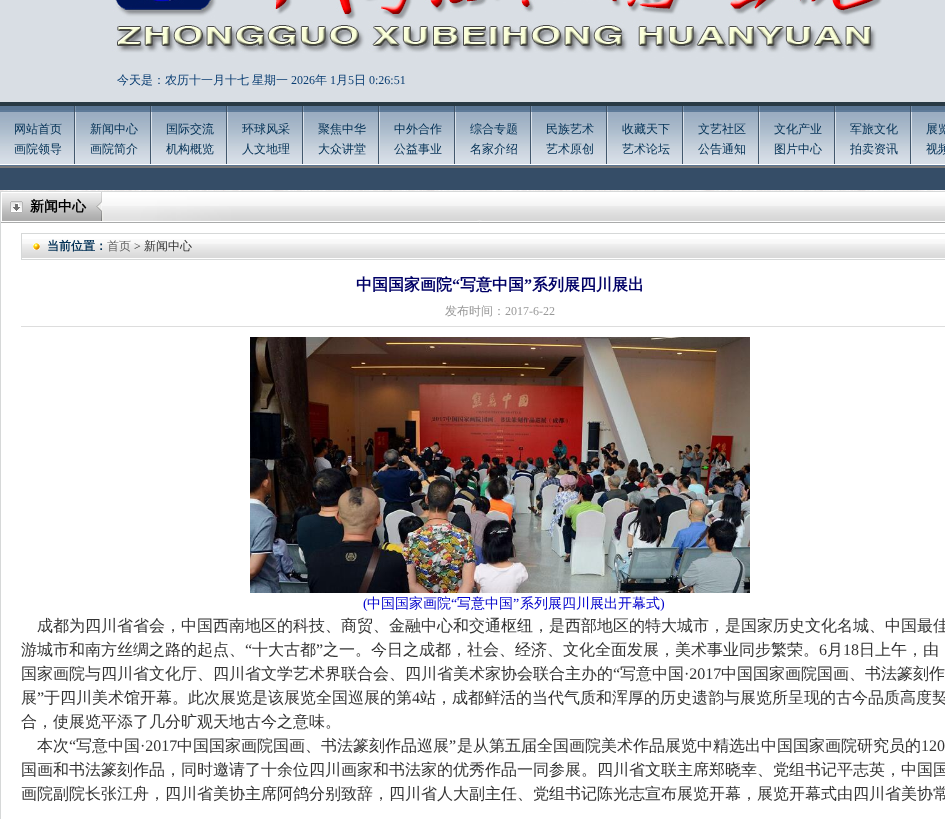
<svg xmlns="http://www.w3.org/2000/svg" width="945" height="819">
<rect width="100%" height="100%" fill="#fff"/>
<image x="0" y="190" width="945" height="1" href="media/1.png"/>
<image x="0" y="0" width="945" height="102" href="media/2.png"/>
<text x="117" y="84" style="font-family:WenQuanYi Zen Hei;font-size:12px;font-weight:500;fill:#093d72">今天是：农历十一月十七</text>
<text x="252" y="84" style="font-family:WenQuanYi Zen Hei;font-size:12px;font-weight:500;fill:#093d72">星期一</text>
<text x="291" y="84" style="font-family:Liberation Serif;font-size:12px;fill:#093d72">2026</text>
<text x="315" y="84" style="font-family:WenQuanYi Zen Hei;font-size:12px;font-weight:500;fill:#093d72">年</text>
<text x="330" y="84" style="font-family:Liberation Serif;font-size:12px;fill:#093d72">1</text>
<text x="336" y="84" style="font-family:WenQuanYi Zen Hei;font-size:12px;font-weight:500;fill:#093d72">月</text>
<text x="348" y="84" style="font-family:Liberation Serif;font-size:12px;fill:#093d72">5</text>
<text x="354" y="84" style="font-family:WenQuanYi Zen Hei;font-size:12px;font-weight:500;fill:#093d72">日</text>
<text x="369" y="84" style="font-family:Liberation Serif;font-size:12px;fill:#093d72">0:26:51</text>
<image x="0" y="102" width="945" height="66" href="media/3.png"/>
<image x="74" y="106" width="2" height="58" href="media/4.png"/>
<text x="14" y="133" style="font-family:WenQuanYi Zen Hei;font-size:12px;font-weight:500;fill:#023055">网站首页</text>
<text x="14" y="153" style="font-family:WenQuanYi Zen Hei;font-size:12px;font-weight:500;fill:#023055">画院领导</text>
<image x="150" y="106" width="2" height="58" href="media/4.png"/>
<text x="90" y="133" style="font-family:WenQuanYi Zen Hei;font-size:12px;font-weight:500;fill:#023055">新闻中心</text>
<text x="90" y="153" style="font-family:WenQuanYi Zen Hei;font-size:12px;font-weight:500;fill:#023055">画院简介</text>
<image x="226" y="106" width="2" height="58" href="media/4.png"/>
<text x="166" y="133" style="font-family:WenQuanYi Zen Hei;font-size:12px;font-weight:500;fill:#023055">国际交流</text>
<text x="166" y="153" style="font-family:WenQuanYi Zen Hei;font-size:12px;font-weight:500;fill:#023055">机构概览</text>
<image x="302" y="106" width="2" height="58" href="media/4.png"/>
<text x="242" y="133" style="font-family:WenQuanYi Zen Hei;font-size:12px;font-weight:500;fill:#023055">环球风采</text>
<text x="242" y="153" style="font-family:WenQuanYi Zen Hei;font-size:12px;font-weight:500;fill:#023055">人文地理</text>
<image x="378" y="106" width="2" height="58" href="media/4.png"/>
<text x="318" y="133" style="font-family:WenQuanYi Zen Hei;font-size:12px;font-weight:500;fill:#023055">聚焦中华</text>
<text x="318" y="153" style="font-family:WenQuanYi Zen Hei;font-size:12px;font-weight:500;fill:#023055">大众讲堂</text>
<image x="454" y="106" width="2" height="58" href="media/4.png"/>
<text x="394" y="133" style="font-family:WenQuanYi Zen Hei;font-size:12px;font-weight:500;fill:#023055">中外合作</text>
<text x="394" y="153" style="font-family:WenQuanYi Zen Hei;font-size:12px;font-weight:500;fill:#023055">公益事业</text>
<image x="530" y="106" width="2" height="58" href="media/4.png"/>
<text x="470" y="133" style="font-family:WenQuanYi Zen Hei;font-size:12px;font-weight:500;fill:#023055">综合专题</text>
<text x="470" y="153" style="font-family:WenQuanYi Zen Hei;font-size:12px;font-weight:500;fill:#023055">名家介绍</text>
<image x="606" y="106" width="2" height="58" href="media/4.png"/>
<text x="546" y="133" style="font-family:WenQuanYi Zen Hei;font-size:12px;font-weight:500;fill:#023055">民族艺术</text>
<text x="546" y="153" style="font-family:WenQuanYi Zen Hei;font-size:12px;font-weight:500;fill:#023055">艺术原创</text>
<image x="682" y="106" width="2" height="58" href="media/4.png"/>
<text x="622" y="133" style="font-family:WenQuanYi Zen Hei;font-size:12px;font-weight:500;fill:#023055">收藏天下</text>
<text x="622" y="153" style="font-family:WenQuanYi Zen Hei;font-size:12px;font-weight:500;fill:#023055">艺术论坛</text>
<image x="758" y="106" width="2" height="58" href="media/4.png"/>
<text x="698" y="133" style="font-family:WenQuanYi Zen Hei;font-size:12px;font-weight:500;fill:#023055">文艺社区</text>
<text x="698" y="153" style="font-family:WenQuanYi Zen Hei;font-size:12px;font-weight:500;fill:#023055">公告通知</text>
<image x="834" y="106" width="2" height="58" href="media/4.png"/>
<text x="774" y="133" style="font-family:WenQuanYi Zen Hei;font-size:12px;font-weight:500;fill:#023055">文化产业</text>
<text x="774" y="153" style="font-family:WenQuanYi Zen Hei;font-size:12px;font-weight:500;fill:#023055">图片中心</text>
<image x="910" y="106" width="2" height="58" href="media/4.png"/>
<text x="850" y="133" style="font-family:WenQuanYi Zen Hei;font-size:12px;font-weight:500;fill:#023055">军旅文化</text>
<text x="850" y="153" style="font-family:WenQuanYi Zen Hei;font-size:12px;font-weight:500;fill:#023055">拍卖资讯</text>
<text x="926" y="133" style="font-family:WenQuanYi Zen Hei;font-size:12px;font-weight:500;fill:#023055">展览</text>
<text x="926" y="153" style="font-family:WenQuanYi Zen Hei;font-size:12px;font-weight:500;fill:#023055">视频</text>
<rect y="168" width="945" height="22" fill="#354d67"/>
<image x="0" y="191" width="945" height="32" href="media/5.png"/>
<text x="30" y="211" style="font-family:WenQuanYi Zen Hei;font-size:14px;font-weight:bold;fill:#000">新闻中心</text>
<rect y="223" width="1" height="596" fill="#d6d8d8"/>
<image x="22" y="239" width="923" height="19" href="media/6.png"/>
<rect x="21.5" y="233.5" width="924" height="26" fill="none" stroke="#d6d8d8"/>
<image x="33" y="243" width="7" height="7" href="media/7.png"/>
<text x="47" y="250" style="font-family:WenQuanYi Zen Hei;font-size:12px;font-weight:bold;fill:#023055">当前位置：</text>
<text x="107" y="250" style="font-family:WenQuanYi Zen Hei;font-size:12px;font-weight:500;fill:#666">首页</text>
<text x="134" y="250" style="font-family:Liberation Serif;font-size:12px;fill:#333">&gt;</text>
<text x="144" y="250" style="font-family:WenQuanYi Zen Hei;font-size:12px;font-weight:500;fill:#333">新闻中心</text>
<text x="356" y="290" style="font-family:WenQuanYi Zen Hei;font-size:16px;font-weight:bold;fill:#006">中国国家画院</text>
<text x="452" y="290" style="font-family:Liberation Serif;font-size:16px;font-weight:bold;fill:#006">“</text>
<text x="460" y="290" style="font-family:WenQuanYi Zen Hei;font-size:16px;font-weight:bold;fill:#006">写意中国</text>
<text x="524" y="290" style="font-family:Liberation Serif;font-size:16px;font-weight:bold;fill:#006">”</text>
<text x="532" y="290" style="font-family:WenQuanYi Zen Hei;font-size:16px;font-weight:bold;fill:#006">系列展四川展出</text>
<rect x="21" y="326" width="924" height="1" fill="#ddd"/>
<text x="445" y="315" style="font-family:WenQuanYi Zen Hei;font-size:12px;font-weight:500;fill:#999">发布时间：</text>
<text x="505" y="315" style="font-family:Liberation Serif;font-size:12px;fill:#999">2017-6-22</text>
<image x="250" y="337" width="500" height="256" href="media/8.png"/>
<text x="363" y="608" style="font-family:Liberation Serif;font-size:14px;fill:#00c">(</text>
<text x="367" y="608" style="font-family:WenQuanYi Zen Hei;font-size:14px;font-weight:500;fill:#00c">中国国家画院</text>
<text x="451" y="608" style="font-family:Liberation Serif;font-size:14px;fill:#00c">“</text>
<text x="457" y="608" style="font-family:WenQuanYi Zen Hei;font-size:14px;font-weight:500;fill:#00c">写意中国</text>
<text x="513" y="608" style="font-family:Liberation Serif;font-size:14px;fill:#00c">”</text>
<text x="520" y="608" style="font-family:WenQuanYi Zen Hei;font-size:14px;font-weight:500;fill:#00c">系列展四川展出开幕式</text>
<text x="660" y="608" style="font-family:Liberation Serif;font-size:14px;fill:#00c">)</text>
<text x="37" y="631" style="font-family:WenQuanYi Zen Hei;font-size:16px;font-weight:500;fill:#333">成都为四川省省会，中国西南地区的科技、商贸、金融中心和交通枢纽，是西部地区的特大城市，是国家历史文化名城、中国最佳</text>
<text x="21" y="655" style="font-family:WenQuanYi Zen Hei;font-size:16px;font-weight:500;fill:#333">游城市和南方丝绸之路的起点、</text>
<text x="245" y="655" style="font-family:Liberation Serif;font-size:16px;fill:#333">“</text>
<text x="252" y="655" style="font-family:WenQuanYi Zen Hei;font-size:16px;font-weight:500;fill:#333">十大古都</text>
<text x="316" y="655" style="font-family:Liberation Serif;font-size:16px;fill:#333">”</text>
<text x="323" y="655" style="font-family:WenQuanYi Zen Hei;font-size:16px;font-weight:500;fill:#333">之一。今日之成都，社会、经济、文化全面发展，美术事业同步繁荣。</text>
<text x="819" y="655" style="font-family:Liberation Serif;font-size:16px;fill:#333">6</text>
<text x="827" y="655" style="font-family:WenQuanYi Zen Hei;font-size:16px;font-weight:500;fill:#333">月</text>
<text x="843" y="655" style="font-family:Liberation Serif;font-size:16px;fill:#333">18</text>
<text x="859" y="655" style="font-family:WenQuanYi Zen Hei;font-size:16px;font-weight:500;fill:#333">日上午，由</text>
<text x="21" y="679" style="font-family:WenQuanYi Zen Hei;font-size:16px;font-weight:500;fill:#333">国家画院与四川省文化厅、四川省文学艺术界联合会、四川省美术家协会联合主办的</text>
<text x="613" y="679" style="font-family:Liberation Serif;font-size:16px;fill:#333">“</text>
<text x="620" y="679" style="font-family:WenQuanYi Zen Hei;font-size:16px;font-weight:500;fill:#333">写意中国</text>
<text x="684" y="679" style="font-family:Liberation Serif;font-size:16px;fill:#333">·2017</text>
<text x="721" y="679" style="font-family:WenQuanYi Zen Hei;font-size:16px;font-weight:500;fill:#333">中国国家画院国画、书法篆刻作</text>
<text x="21" y="703" style="font-family:WenQuanYi Zen Hei;font-size:16px;font-weight:500;fill:#333">展</text>
<text x="37" y="703" style="font-family:Liberation Serif;font-size:16px;fill:#333">”</text>
<text x="44" y="703" style="font-family:WenQuanYi Zen Hei;font-size:16px;font-weight:500;fill:#333">于四川美术馆开幕。此次展览是该展览全国巡展的第</text>
<text x="412" y="703" style="font-family:Liberation Serif;font-size:16px;fill:#333">4</text>
<text x="420" y="703" style="font-family:WenQuanYi Zen Hei;font-size:16px;font-weight:500;fill:#333">站，成都鲜活的当代气质和浑厚的历史遗韵与展览所呈现的古今品质高度契</text>
<text x="21" y="727" style="font-family:WenQuanYi Zen Hei;font-size:16px;font-weight:500;fill:#333">合，使展览平添了几分旷观天地古今之意味。</text>
<text x="37" y="751" style="font-family:WenQuanYi Zen Hei;font-size:16px;font-weight:500;fill:#333">本次</text>
<text x="69" y="751" style="font-family:Liberation Serif;font-size:16px;fill:#333">“</text>
<text x="76" y="751" style="font-family:WenQuanYi Zen Hei;font-size:16px;font-weight:500;fill:#333">写意中国</text>
<text x="140" y="751" style="font-family:Liberation Serif;font-size:16px;fill:#333">·2017</text>
<text x="177" y="751" style="font-family:WenQuanYi Zen Hei;font-size:16px;font-weight:500;fill:#333">中国国家画院国画、书法篆刻作品巡展</text>
<text x="449" y="751" style="font-family:Liberation Serif;font-size:16px;fill:#333">”</text>
<text x="457" y="751" style="font-family:WenQuanYi Zen Hei;font-size:16px;font-weight:500;fill:#333">是从第五届全国画院美术作品展览中精选出中国国家画院研究员的</text>
<text x="921" y="751" style="font-family:Liberation Serif;font-size:16px;fill:#333">120</text>
<text x="21" y="775" style="font-family:WenQuanYi Zen Hei;font-size:16px;font-weight:500;fill:#333">国画和书法篆刻作品，同时邀请了十余位四川画家和书法家的优秀作品一同参展。四川省文联主席郑晓幸、党组书记平志英，中国国</text>
<text x="21" y="799" style="font-family:WenQuanYi Zen Hei;font-size:16px;font-weight:500;fill:#333">画院副院长张江舟，四川省美协主席阿鸽分别致辞，四川省人大副主任、党组书记陈光志宣布展览开幕，展览开幕式由四川省美协常</text>
</svg>
